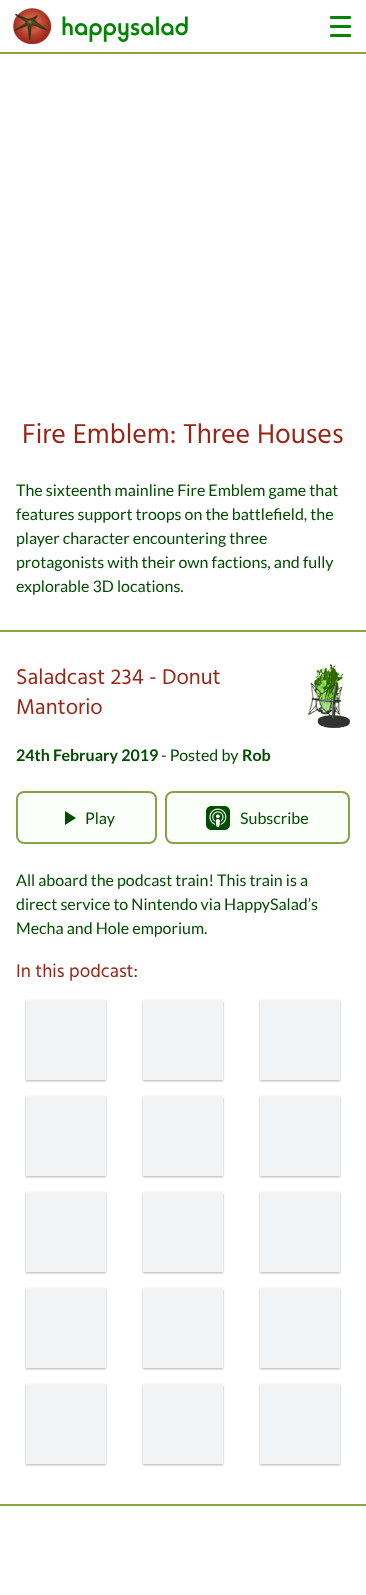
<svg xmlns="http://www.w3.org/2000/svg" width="366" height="1595">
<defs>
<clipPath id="clip1"><path d="M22 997h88v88h-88zm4 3h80v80h-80z" clip-rule="evenodd"/></clipPath>
<clipPath id="clip2"><path d="M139 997h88v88h-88zm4 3h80v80h-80z" clip-rule="evenodd"/></clipPath>
<clipPath id="clip3"><path d="M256 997h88v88h-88zm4 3h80v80h-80z" clip-rule="evenodd"/></clipPath>
<clipPath id="clip4"><path d="M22 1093h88v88h-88zm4 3h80v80h-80z" clip-rule="evenodd"/></clipPath>
<clipPath id="clip5"><path d="M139 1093h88v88h-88zm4 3h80v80h-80z" clip-rule="evenodd"/></clipPath>
<clipPath id="clip6"><path d="M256 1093h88v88h-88zm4 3h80v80h-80z" clip-rule="evenodd"/></clipPath>
<clipPath id="clip7"><path d="M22 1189h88v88h-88zm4 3h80v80h-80z" clip-rule="evenodd"/></clipPath>
<clipPath id="clip8"><path d="M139 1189h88v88h-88zm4 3h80v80h-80z" clip-rule="evenodd"/></clipPath>
<clipPath id="clip9"><path d="M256 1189h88v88h-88zm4 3h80v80h-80z" clip-rule="evenodd"/></clipPath>
<clipPath id="clip10"><path d="M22 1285h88v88h-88zm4 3h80v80h-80z" clip-rule="evenodd"/></clipPath>
<clipPath id="clip11"><path d="M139 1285h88v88h-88zm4 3h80v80h-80z" clip-rule="evenodd"/></clipPath>
<clipPath id="clip12"><path d="M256 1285h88v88h-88zm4 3h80v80h-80z" clip-rule="evenodd"/></clipPath>
<clipPath id="clip13"><path d="M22 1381h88v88h-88zm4 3h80v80h-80z" clip-rule="evenodd"/></clipPath>
<clipPath id="clip14"><path d="M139 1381h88v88h-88zm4 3h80v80h-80z" clip-rule="evenodd"/></clipPath>
<clipPath id="clip15"><path d="M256 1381h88v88h-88zm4 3h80v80h-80z" clip-rule="evenodd"/></clipPath>
</defs>
<rect width="100%" height="100%" fill="#fff"/>
<rect y="52" width="366" height="2" fill="#89a147"/>
<image x="13" y="8" width="39" height="36" href="media/1.png"/>
<image x="62" y="16" width="126" height="26" href="media/2.png"/>
<rect x="330" y="16" width="21" height="3" rx="1" fill="#008500"/>
<rect x="330" y="25" width="21" height="3" rx="1" fill="#008500"/>
<rect x="330" y="34" width="21" height="3" rx="1" fill="#008500"/>
<rect y="630" width="366" height="2" fill="#89a147"/>
<text x="22" y="443" style="font-family:Hind;font-size:28px;fill:#992516">Fire Emblem: Three Houses</text>
<text x="16" y="496" style="font-family:Lato;font-size:16px;fill:#004d00">The sixteenth mainline Fire Emblem game that</text>
<text x="16" y="520" style="font-family:Lato;font-size:16px;fill:#004d00">features support troops on the battlefield, the</text>
<text x="16" y="544" style="font-family:Lato;font-size:16px;fill:#004d00">player character encountering three</text>
<text x="16" y="568" style="font-family:Lato;font-size:16px;fill:#004d00">protagonists with their own factions, and fully</text>
<text x="16" y="592" style="font-family:Lato;font-size:16px;fill:#004d00">explorable 3D locations.</text>
<rect y="1504" width="366" height="2" fill="#89a147"/>
<text x="16" y="684" style="font-family:Hind;font-size:22px;fill:#992516">Saladcast 234 - Donut</text>
<text x="16" y="714" style="font-family:Hind;font-size:22px;fill:#992516">Mantorio</text>
<text x="16" y="761" style="font-family:Lato;font-size:16px;font-weight:bold;fill:#004d00">24th February 2019</text>
<text x="161" y="761" style="font-family:Lato;font-size:16px;fill:#004d00">- Posted by</text>
<text x="242" y="761" style="font-family:Lato;font-size:16px;font-weight:bold;fill:#004d00">Rob</text>
<image x="308" y="664" width="42" height="64" href="media/3.png"/>
<rect x="17" y="792" width="139" height="51" rx="7" fill="#fafffa" stroke="#89a147" stroke-width="2"/>
<path d="M65 811v14l11-7z" fill="#004d00"/>
<text x="85" y="824" style="font-family:Lato;font-size:16px;fill:#004d00">Play</text>
<rect x="166" y="792" width="183" height="51" rx="7" fill="#fafffa" stroke="#89a147" stroke-width="2"/>
<image x="206" y="806" width="24" height="24" href="media/4.png"/>
<text x="240" y="824" style="font-family:Lato;font-size:16px;fill:#004d00">Subscribe</text>
<text x="16" y="886" style="font-family:Lato;font-size:16px;fill:#004d00">All aboard the podcast train! This train is a</text>
<text x="16" y="910" style="font-family:Lato;font-size:16px;fill:#004d00">direct service to Nintendo via HappySalad’s</text>
<text x="16" y="934" style="font-family:Lato;font-size:16px;fill:#004d00">Mecha and Hole emporium.</text>
<text x="16" y="977" style="font-family:Hind;font-size:18.75px;fill:#992516">In this podcast:</text>
<rect x="26" y="1000" width="80" height="80" fill="#f1f3f4"/>
<g clip-path="url(#clip1)">
<rect x="26" y="1001" width="80" height="80" fill="#0000004d" filter="blur(1px)"/>
</g>
<rect x="143" y="1000" width="80" height="80" fill="#f1f3f4"/>
<g clip-path="url(#clip2)">
<rect x="143" y="1001" width="80" height="80" fill="#0000004d" filter="blur(1px)"/>
</g>
<rect x="260" y="1000" width="80" height="80" fill="#f1f3f4"/>
<g clip-path="url(#clip3)">
<rect x="260" y="1001" width="80" height="80" fill="#0000004d" filter="blur(1px)"/>
</g>
<rect x="26" y="1096" width="80" height="80" fill="#f1f3f4"/>
<g clip-path="url(#clip4)">
<rect x="26" y="1097" width="80" height="80" fill="#0000004d" filter="blur(1px)"/>
</g>
<rect x="143" y="1096" width="80" height="80" fill="#f1f3f4"/>
<g clip-path="url(#clip5)">
<rect x="143" y="1097" width="80" height="80" fill="#0000004d" filter="blur(1px)"/>
</g>
<rect x="260" y="1096" width="80" height="80" fill="#f1f3f4"/>
<g clip-path="url(#clip6)">
<rect x="260" y="1097" width="80" height="80" fill="#0000004d" filter="blur(1px)"/>
</g>
<rect x="26" y="1192" width="80" height="80" fill="#f1f3f4"/>
<g clip-path="url(#clip7)">
<rect x="26" y="1193" width="80" height="80" fill="#0000004d" filter="blur(1px)"/>
</g>
<rect x="143" y="1192" width="80" height="80" fill="#f1f3f4"/>
<g clip-path="url(#clip8)">
<rect x="143" y="1193" width="80" height="80" fill="#0000004d" filter="blur(1px)"/>
</g>
<rect x="260" y="1192" width="80" height="80" fill="#f1f3f4"/>
<g clip-path="url(#clip9)">
<rect x="260" y="1193" width="80" height="80" fill="#0000004d" filter="blur(1px)"/>
</g>
<rect x="26" y="1288" width="80" height="80" fill="#f1f3f4"/>
<g clip-path="url(#clip10)">
<rect x="26" y="1289" width="80" height="80" fill="#0000004d" filter="blur(1px)"/>
</g>
<rect x="143" y="1288" width="80" height="80" fill="#f1f3f4"/>
<g clip-path="url(#clip11)">
<rect x="143" y="1289" width="80" height="80" fill="#0000004d" filter="blur(1px)"/>
</g>
<rect x="260" y="1288" width="80" height="80" fill="#f1f3f4"/>
<g clip-path="url(#clip12)">
<rect x="260" y="1289" width="80" height="80" fill="#0000004d" filter="blur(1px)"/>
</g>
<rect x="26" y="1384" width="80" height="80" fill="#f1f3f4"/>
<g clip-path="url(#clip13)">
<rect x="26" y="1385" width="80" height="80" fill="#0000004d" filter="blur(1px)"/>
</g>
<rect x="143" y="1384" width="80" height="80" fill="#f1f3f4"/>
<g clip-path="url(#clip14)">
<rect x="143" y="1385" width="80" height="80" fill="#0000004d" filter="blur(1px)"/>
</g>
<rect x="260" y="1384" width="80" height="80" fill="#f1f3f4"/>
<g clip-path="url(#clip15)">
<rect x="260" y="1385" width="80" height="80" fill="#0000004d" filter="blur(1px)"/>
</g>
</svg>
